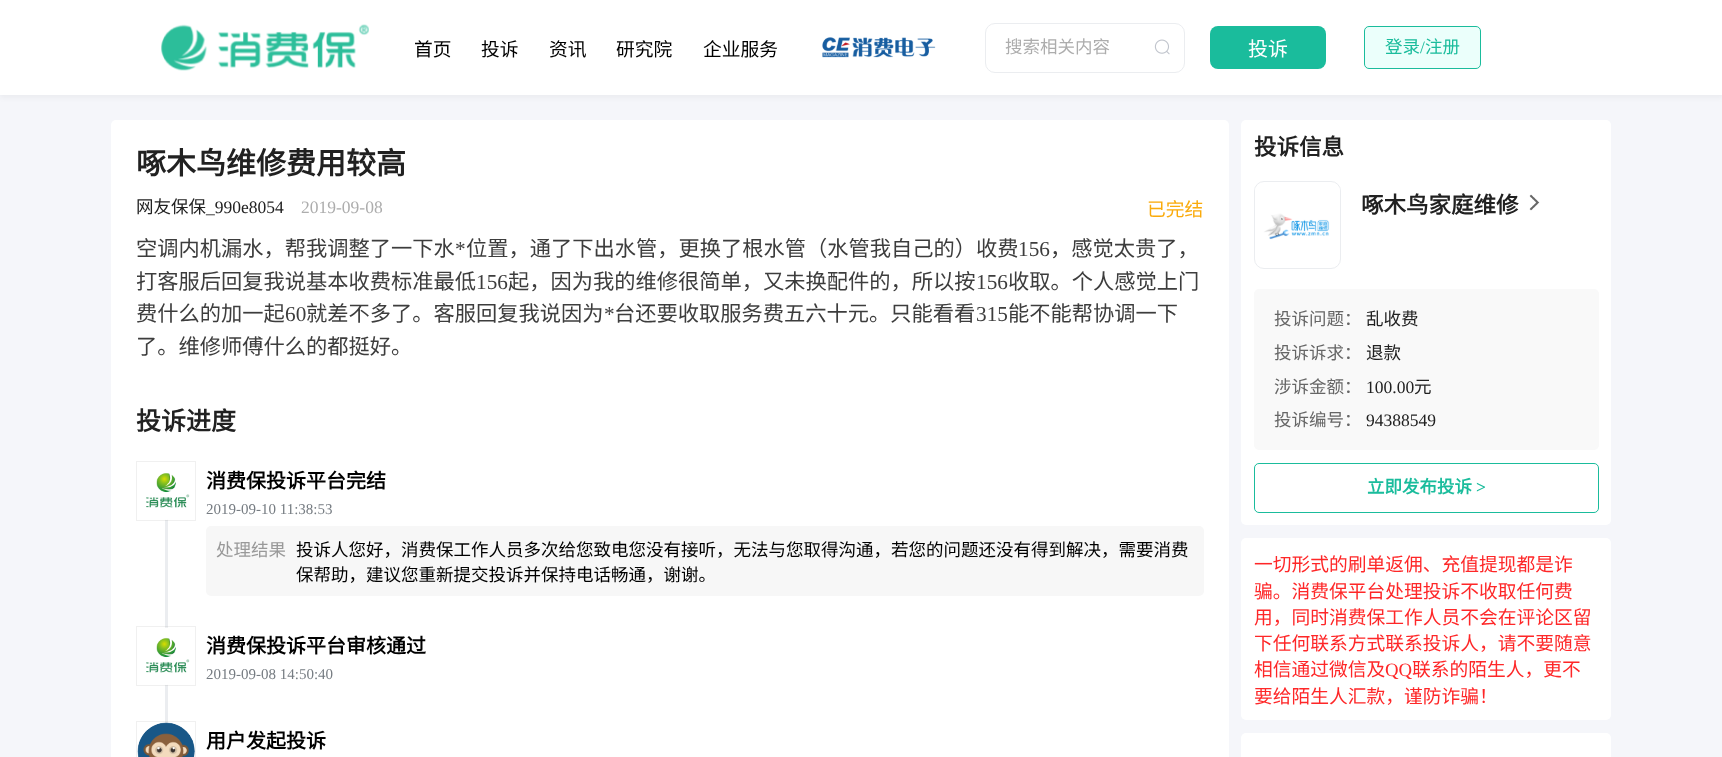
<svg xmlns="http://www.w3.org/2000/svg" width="1722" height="757">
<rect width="100%" height="100%" fill="#f5f6fa"/>
<rect y="3" width="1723" height="95" fill="#0000000a" filter="blur(2.5px)"/>
<rect width="1722" height="95" fill="#fff"/>
<image x="161" y="24" width="208" height="47" href="media/1.png"/>
<text x="414" y="56" style="font-family:Noto Sans CJK SC;font-size:18.75px;fill:#000">首页</text>
<text x="481" y="56" style="font-family:Noto Sans CJK SC;font-size:18.75px;fill:#000">投诉</text>
<text x="549" y="56" style="font-family:Noto Sans CJK SC;font-size:18.75px;fill:#000">资讯</text>
<text x="616" y="56" style="font-family:Noto Sans CJK SC;font-size:18.75px;fill:#000">研究院</text>
<text x="703" y="56" style="font-family:Noto Sans CJK SC;font-size:18.75px;fill:#000">企业服务</text>
<image x="822" y="37" width="114" height="21" href="media/2.png"/>
<rect x="985.5" y="23.5" width="199" height="49" rx="9.5" fill="none" stroke="#ebedf0"/>
<text x="1005" y="53" style="font-family:Noto Sans CJK SC;font-size:17.5px;fill:#adadad">搜索相关内容</text>
<image x="1154" y="39" width="16" height="16" href="media/3.png"/>
<rect x="1210" y="26" width="116" height="43" rx="8" fill="#1abc9c"/>
<text x="1248" y="56" style="font-family:Noto Sans CJK SC;font-size:20px;fill:#fff">投诉</text>
<rect x="1364.5" y="26.5" width="116" height="42" rx="4.5" fill="#ebfffb" stroke="#1abc9c"/>
<text x="1385" y="53" style="font-family:Noto Sans CJK SC;font-size:17.5px;fill:#1abc9c">登录</text>
<text x="1420" y="53" style="font-family:Liberation Serif;font-size:17.5px;fill:#1abc9c">/</text>
<text x="1425" y="53" style="font-family:Noto Sans CJK SC;font-size:17.5px;fill:#1abc9c">注册</text>
<rect x="111" y="120" width="1118" height="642" rx="5" fill="#fff"/>
<text x="136" y="174" style="font-family:Noto Sans CJK SC;font-size:30px;font-weight:bold;fill:#212121">啄木鸟维修费用较高</text>
<text x="136" y="213" style="font-family:Noto Sans CJK SC;font-size:17.5px;fill:#212121">网友保保</text>
<text x="206" y="213" style="font-family:Liberation Serif;font-size:17.5px;fill:#212121">_990e8054</text>
<text x="301" y="213" style="font-family:Liberation Serif;font-size:17.5px;fill:#adadad">2019-09-08</text>
<text x="1147" y="216" style="font-family:Noto Sans CJK SC;font-size:18.75px;fill:#faab0c">已完结</text>
<text x="136" y="256" style="font-family:Noto Sans CJK SC;font-size:21.25px;fill:#3d3d3d">空调内机漏水，帮我调整了一下水</text>
<text x="455" y="256" style="font-family:Liberation Serif;font-size:21.25px;fill:#3d3d3d">*</text>
<text x="466" y="256" style="font-family:Noto Sans CJK SC;font-size:21.25px;fill:#3d3d3d">位置，通了下出水管，更换了根水管（水管我自己的）收费</text>
<text x="1018" y="256" style="font-family:Liberation Serif;font-size:21.25px;fill:#3d3d3d">156</text>
<text x="1050" y="256" style="font-family:Noto Sans CJK SC;font-size:21.25px;fill:#3d3d3d">，感觉太贵了，</text>
<text x="136" y="289" style="font-family:Noto Sans CJK SC;font-size:21.25px;fill:#3d3d3d">打客服后回复我说基本收费标准最低</text>
<text x="476" y="289" style="font-family:Liberation Serif;font-size:21.25px;fill:#3d3d3d">156</text>
<text x="508" y="289" style="font-family:Noto Sans CJK SC;font-size:21.25px;fill:#3d3d3d">起，因为我的维修很简单，又未换配件的，所以按</text>
<text x="976" y="289" style="font-family:Liberation Serif;font-size:21.25px;fill:#3d3d3d">156</text>
<text x="1008" y="289" style="font-family:Noto Sans CJK SC;font-size:21.25px;fill:#3d3d3d">收取。个人感觉上门</text>
<text x="136" y="321" style="font-family:Noto Sans CJK SC;font-size:21.25px;fill:#3d3d3d">费什么的加一起</text>
<text x="285" y="321" style="font-family:Liberation Serif;font-size:21.25px;fill:#3d3d3d">60</text>
<text x="306" y="321" style="font-family:Noto Sans CJK SC;font-size:21.25px;fill:#3d3d3d">就差不多了。客服回复我说因为</text>
<text x="604" y="321" style="font-family:Liberation Serif;font-size:21.25px;fill:#3d3d3d">*</text>
<text x="614" y="321" style="font-family:Noto Sans CJK SC;font-size:21.25px;fill:#3d3d3d">台还要收取服务费五六十元。只能看看</text>
<text x="976" y="321" style="font-family:Liberation Serif;font-size:21.25px;fill:#3d3d3d">315</text>
<text x="1008" y="321" style="font-family:Noto Sans CJK SC;font-size:21.25px;fill:#3d3d3d">能不能帮协调一下</text>
<text x="136" y="354" style="font-family:Noto Sans CJK SC;font-size:21.25px;fill:#3d3d3d">了。维修师傅什么的都挺好。</text>
<text x="136" y="430" style="font-family:Noto Sans CJK SC;font-size:25px;font-weight:bold;fill:#212121">投诉进度</text>
<rect x="165" y="519" width="3" height="109" fill="#ebedf0"/>
<rect x="136.5" y="461.5" width="59" height="59" fill="none" stroke="#0000000f"/>
<image x="146" y="473" width="47" height="47" href="media/4.png"/>
<text x="206" y="488" style="font-family:Noto Sans CJK SC;font-size:20px;font-weight:bold;fill:#000">消费保投诉平台完结</text>
<text x="206" y="514" style="font-family:Liberation Serif;font-size:15px;fill:#767c82">2019-09-10 11:38:53</text>
<rect x="206" y="526" width="998" height="70" rx="5" fill="#f7f7f7"/>
<text x="216" y="556" style="font-family:Noto Sans CJK SC;font-size:17.5px;fill:#999">处理结果</text>
<text x="296" y="556" style="font-family:Noto Sans CJK SC;font-size:17.5px;fill:#000">投诉人您好，消费保工作人员多次给您致电您没有接听，无法与您取得沟通，若您的问题还没有得到解决，需要消费</text>
<text x="296" y="581" style="font-family:Noto Sans CJK SC;font-size:17.5px;fill:#000">保帮助，建议您重新提交投诉并保持电话畅通，谢谢。</text>
<rect x="165" y="684" width="3" height="40" fill="#ebedf0"/>
<rect x="136.5" y="626.5" width="59" height="59" fill="none" stroke="#0000000f"/>
<image x="146" y="627" width="47" height="58" href="media/5.png"/>
<text x="206" y="653" style="font-family:Noto Sans CJK SC;font-size:20px;font-weight:bold;fill:#000">消费保投诉平台审核通过</text>
<text x="206" y="679" style="font-family:Liberation Serif;font-size:15px;fill:#767c82">2019-09-08 14:50:40</text>
<rect x="136.5" y="721.5" width="59" height="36" fill="none" stroke="#0000000f"/>
<image x="137" y="722" width="58" height="35" href="media/6.png"/>
<text x="206" y="748" style="font-family:Noto Sans CJK SC;font-size:20px;font-weight:bold;fill:#000">用户发起投诉</text>
<rect x="1241" y="120" width="370" height="405" rx="5" fill="#fff"/>
<text x="1254" y="155" style="font-family:Noto Sans CJK SC;font-size:22.5px;font-weight:bold;fill:#212121">投诉信息</text>
<rect x="1254.5" y="181.5" width="86" height="87" rx="9.5" fill="none" stroke="#ebedf0"/>
<image x="1255" y="188" width="85" height="52" href="media/7.png"/>
<text x="1361" y="213" style="font-family:Noto Sans CJK SC;font-size:22.5px;font-weight:bold;fill:#212121">啄木鸟家庭维修</text>
<image x="1529" y="194" width="11" height="17" href="media/8.png"/>
<rect x="1254" y="289" width="345" height="161" rx="5" fill="#f9f9f9"/>
<text x="1274" y="325" style="font-family:Noto Sans CJK SC;font-size:17.5px;fill:#666">投诉问题：</text>
<text x="1366" y="325" style="font-family:Noto Sans CJK SC;font-size:17.5px;fill:#212121">乱收费</text>
<text x="1274" y="359" style="font-family:Noto Sans CJK SC;font-size:17.5px;fill:#666">投诉诉求：</text>
<text x="1366" y="359" style="font-family:Noto Sans CJK SC;font-size:17.5px;fill:#212121">退款</text>
<text x="1274" y="393" style="font-family:Noto Sans CJK SC;font-size:17.5px;fill:#666">涉诉金额：</text>
<text x="1366" y="393" style="font-family:Liberation Serif;font-size:17.5px;fill:#212121">100.00</text>
<text x="1414" y="393" style="font-family:Noto Sans CJK SC;font-size:17.5px;fill:#212121">元</text>
<text x="1274" y="426" style="font-family:Noto Sans CJK SC;font-size:17.5px;fill:#666">投诉编号：</text>
<text x="1366" y="426" style="font-family:Liberation Serif;font-size:17.5px;fill:#212121">94388549</text>
<rect x="1254.5" y="463.5" width="344" height="49" rx="4.5" fill="none" stroke="#1abc9c"/>
<text x="1367" y="493" style="font-family:Noto Sans CJK SC;font-size:17.5px;font-weight:bold;fill:#1abc9c">立即发布投诉</text>
<text x="1476" y="493" style="font-family:Liberation Serif;font-size:17.5px;font-weight:bold;fill:#1abc9c">&gt;</text>
<rect x="1241" y="538" width="370" height="182" rx="5" fill="#fff"/>
<text x="1254" y="571" style="font-family:Noto Sans CJK SC;font-size:18.75px;fill:#fe2728">一切形式的刷单返佣、充值提现都是诈</text>
<text x="1254" y="598" style="font-family:Noto Sans CJK SC;font-size:18.75px;fill:#fe2728">骗。消费保平台处理投诉不收取任何费</text>
<text x="1254" y="624" style="font-family:Noto Sans CJK SC;font-size:18.75px;fill:#fe2728">用，同时消费保工作人员不会在评论区留</text>
<text x="1254" y="650" style="font-family:Noto Sans CJK SC;font-size:18.75px;fill:#fe2728">下任何联系方式联系投诉人，请不要随意</text>
<text x="1254" y="676" style="font-family:Noto Sans CJK SC;font-size:18.75px;fill:#fe2728">相信通过微信及</text>
<text x="1385" y="676" style="font-family:Liberation Serif;font-size:18.75px;fill:#fe2728">QQ</text>
<text x="1412" y="676" style="font-family:Noto Sans CJK SC;font-size:18.75px;fill:#fe2728">联系的陌生人，更不</text>
<text x="1254" y="703" style="font-family:Noto Sans CJK SC;font-size:18.75px;fill:#fe2728">要给陌生人汇款，谨防诈骗！</text>
<rect x="1241" y="733" width="370" height="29" rx="5" fill="#fff"/>
</svg>
